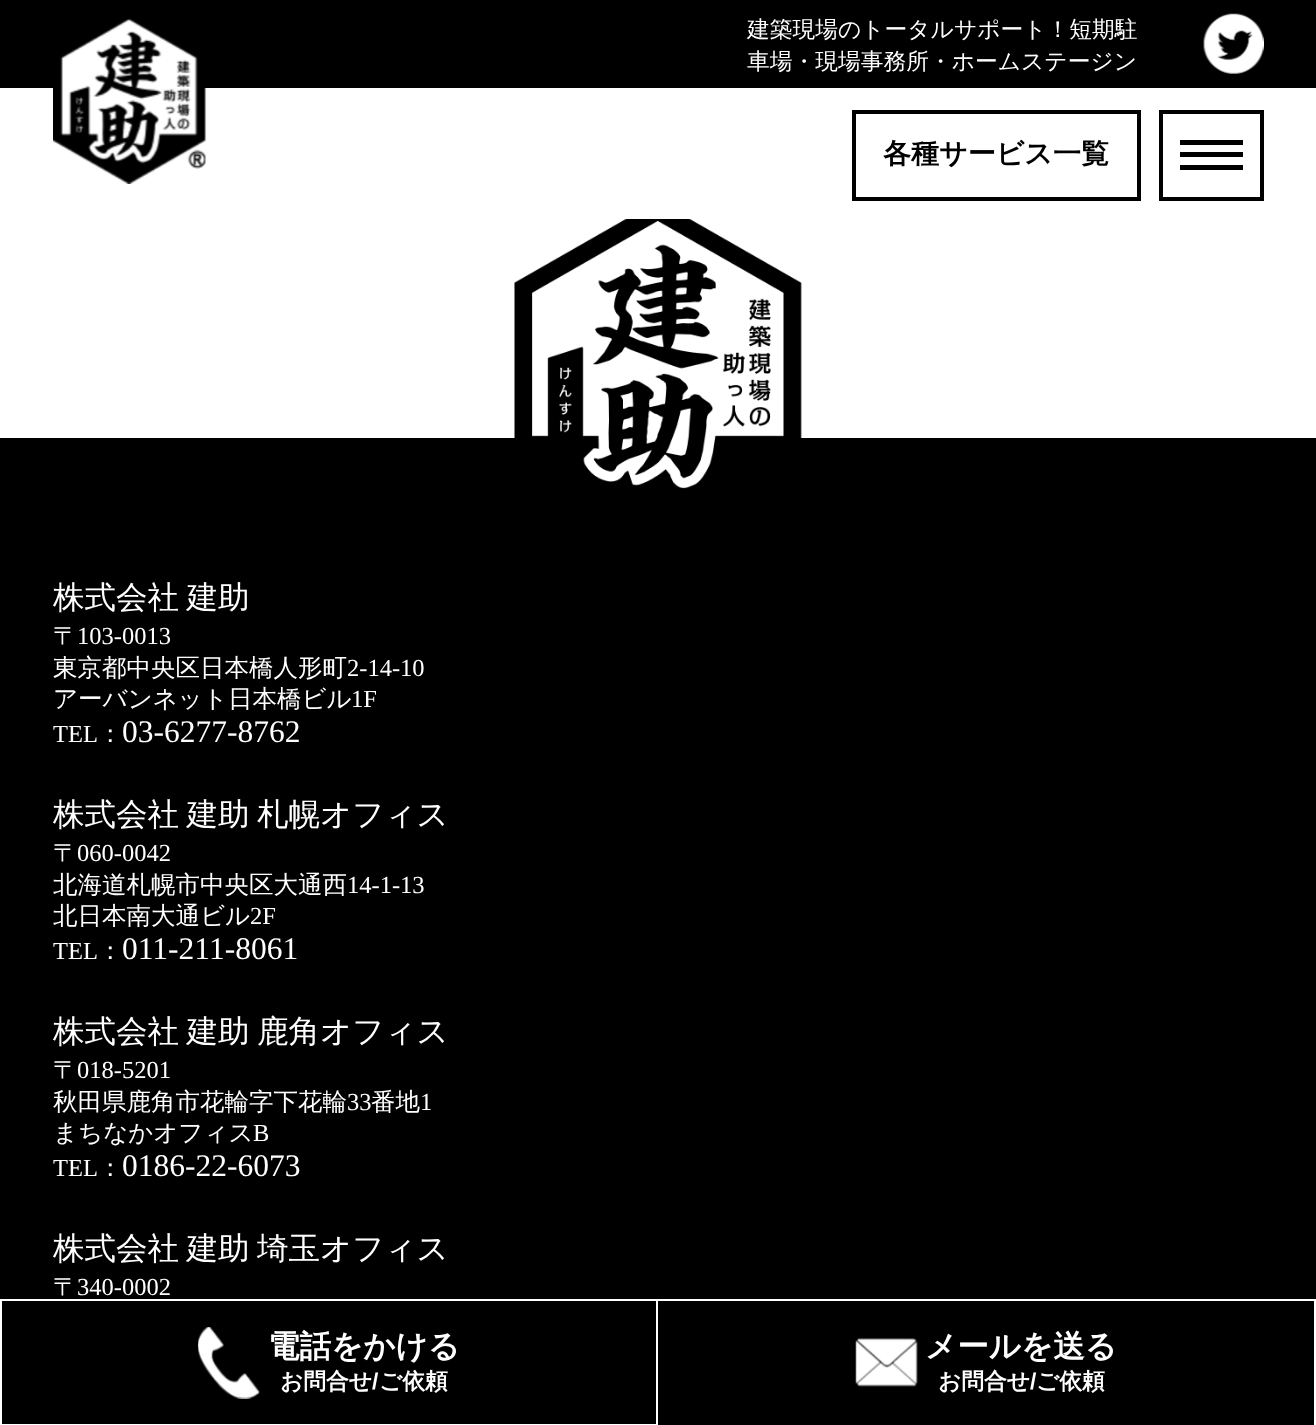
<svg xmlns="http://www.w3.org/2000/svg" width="1316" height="1425">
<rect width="100%" height="100%" fill="#fff"/>
<rect width="1316" height="88" fill="#000"/>
<image x="53" y="18" width="154" height="166" href="media/1.png"/>
<text x="747" y="37" style="font-family:WenQuanYi Zen Hei;font-size:22.75px;font-weight:500;fill:#fff">建築現場のトータルサポート！短期駐</text>
<text x="747" y="69" style="font-family:WenQuanYi Zen Hei;font-size:22.75px;font-weight:500;fill:#fff">車場・現場事務所・ホームステージン</text>
<image x="1203" y="13" width="61" height="61" href="media/2.png"/>
<rect x="854" y="112" width="285" height="87" fill="none" stroke="#000" stroke-width="4"/>
<text x="883" y="163" style="font-family:WenQuanYi Zen Hei;font-size:28px;font-weight:bold;fill:#000">各種サービス一覧</text>
<rect x="1161" y="112" width="101" height="87" fill="none" stroke="#000" stroke-width="4"/>
<rect x="1180" y="140" width="63" height="5" fill="#000"/>
<rect x="1180" y="152" width="63" height="5" fill="#000"/>
<rect x="1180" y="165" width="63" height="5" fill="#000"/>
<rect y="438" width="1316" height="861" fill="#000"/>
<image x="514" y="219" width="288" height="270" href="media/3.png"/>
<text x="53" y="608" word-spacing="-2" style="font-family:WenQuanYi Zen Hei;font-size:31.5px;font-weight:500;fill:#fff">株式会社 建助</text>
<text x="53" y="644" style="font-family:WenQuanYi Zen Hei;font-size:24.5px;font-weight:500;fill:#fff">〒</text>
<text x="77" y="644" style="font-family:Liberation Serif;font-size:24.5px;fill:#fff">103-0013</text>
<text x="53" y="676" style="font-family:WenQuanYi Zen Hei;font-size:24.5px;font-weight:500;fill:#fff">東京都中央区日本橋人形町</text>
<text x="347" y="676" style="font-family:Liberation Serif;font-size:24.5px;fill:#fff">2-14-10</text>
<text x="53" y="707" style="font-family:WenQuanYi Zen Hei;font-size:24.5px;font-weight:500;fill:#fff">アーバンネット日本橋ビル</text>
<text x="351" y="707" style="font-family:Liberation Serif;font-size:24.5px;fill:#fff">1F</text>
<text x="53" y="742" style="font-family:Liberation Serif;font-size:24.5px;fill:#fff">TEL</text>
<text x="98" y="742" style="font-family:WenQuanYi Zen Hei;font-size:24.5px;font-weight:500;fill:#fff">：</text>
<text x="122" y="742" style="font-family:Liberation Serif;font-size:31.5px;fill:#fff">03-6277-8762</text>
<text x="53" y="825" word-spacing="-2" style="font-family:WenQuanYi Zen Hei;font-size:31.5px;font-weight:500;fill:#fff">株式会社 建助 札幌オフィス</text>
<text x="53" y="861" style="font-family:WenQuanYi Zen Hei;font-size:24.5px;font-weight:500;fill:#fff">〒</text>
<text x="77" y="861" style="font-family:Liberation Serif;font-size:24.5px;fill:#fff">060-0042</text>
<text x="53" y="893" style="font-family:WenQuanYi Zen Hei;font-size:24.5px;font-weight:500;fill:#fff">北海道札幌市中央区大通西</text>
<text x="347" y="893" style="font-family:Liberation Serif;font-size:24.5px;fill:#fff">14-1-13</text>
<text x="53" y="924" style="font-family:WenQuanYi Zen Hei;font-size:24.5px;font-weight:500;fill:#fff">北日本南大通ビル</text>
<text x="250" y="924" style="font-family:Liberation Serif;font-size:24.5px;fill:#fff">2F</text>
<text x="53" y="959" style="font-family:Liberation Serif;font-size:24.5px;fill:#fff">TEL</text>
<text x="98" y="959" style="font-family:WenQuanYi Zen Hei;font-size:24.5px;font-weight:500;fill:#fff">：</text>
<text x="122" y="959" style="font-family:Liberation Serif;font-size:31.5px;fill:#fff">011-211-8061</text>
<text x="53" y="1042" word-spacing="-2" style="font-family:WenQuanYi Zen Hei;font-size:31.5px;font-weight:500;fill:#fff">株式会社 建助 鹿角オフィス</text>
<text x="53" y="1078" style="font-family:WenQuanYi Zen Hei;font-size:24.5px;font-weight:500;fill:#fff">〒</text>
<text x="77" y="1078" style="font-family:Liberation Serif;font-size:24.5px;fill:#fff">018-5201</text>
<text x="53" y="1110" style="font-family:WenQuanYi Zen Hei;font-size:24.5px;font-weight:500;fill:#fff">秋田県鹿角市花輪字下花輪</text>
<text x="347" y="1110" style="font-family:Liberation Serif;font-size:24.5px;fill:#fff">33</text>
<text x="371" y="1110" style="font-family:WenQuanYi Zen Hei;font-size:24.5px;font-weight:500;fill:#fff">番地</text>
<text x="420" y="1110" style="font-family:Liberation Serif;font-size:24.5px;fill:#fff">1</text>
<text x="53" y="1141" style="font-family:WenQuanYi Zen Hei;font-size:24.5px;font-weight:500;fill:#fff">まちなかオフィス</text>
<text x="253" y="1141" style="font-family:Liberation Serif;font-size:24.5px;fill:#fff">B</text>
<text x="53" y="1176" style="font-family:Liberation Serif;font-size:24.5px;fill:#fff">TEL</text>
<text x="98" y="1176" style="font-family:WenQuanYi Zen Hei;font-size:24.5px;font-weight:500;fill:#fff">：</text>
<text x="122" y="1176" style="font-family:Liberation Serif;font-size:31.5px;fill:#fff">0186-22-6073</text>
<text x="53" y="1259" word-spacing="-2" style="font-family:WenQuanYi Zen Hei;font-size:31.5px;font-weight:500;fill:#fff">株式会社 建助 埼玉オフィス</text>
<text x="53" y="1295" style="font-family:WenQuanYi Zen Hei;font-size:24.5px;font-weight:500;fill:#fff">〒</text>
<text x="77" y="1295" style="font-family:Liberation Serif;font-size:24.5px;fill:#fff">340-0002</text>
<rect x="2" y="1301" width="1312" height="124" fill="#000"/>
<rect x="1" y="1300" width="656" height="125" fill="none" stroke="#fff" stroke-width="2"/>
<image x="198" y="1327" width="62" height="72" href="media/4.png"/>
<text x="268" y="1357" style="font-family:WenQuanYi Zen Hei;font-size:31.5px;font-weight:bold;fill:#fff">電話をかける</text>
<text x="280" y="1389" style="font-family:WenQuanYi Zen Hei;font-size:22.75px;font-weight:bold;fill:#fff">お問合せ</text>
<text x="372" y="1389" style="font-family:Liberation Sans;font-size:22.75px;font-weight:bold;fill:#fff">/</text>
<text x="379" y="1389" style="font-family:WenQuanYi Zen Hei;font-size:22.75px;font-weight:bold;fill:#fff">ご依頼</text>
<image x="855" y="1338" width="63" height="49" href="media/5.png"/>
<text x="925" y="1357" style="font-family:WenQuanYi Zen Hei;font-size:31.5px;font-weight:bold;fill:#fff">メールを送る</text>
<text x="938" y="1389" style="font-family:WenQuanYi Zen Hei;font-size:22.75px;font-weight:bold;fill:#fff">お問合せ</text>
<text x="1030" y="1389" style="font-family:Liberation Sans;font-size:22.75px;font-weight:bold;fill:#fff">/</text>
<text x="1036" y="1389" style="font-family:WenQuanYi Zen Hei;font-size:22.75px;font-weight:bold;fill:#fff">ご依頼</text>
</svg>
